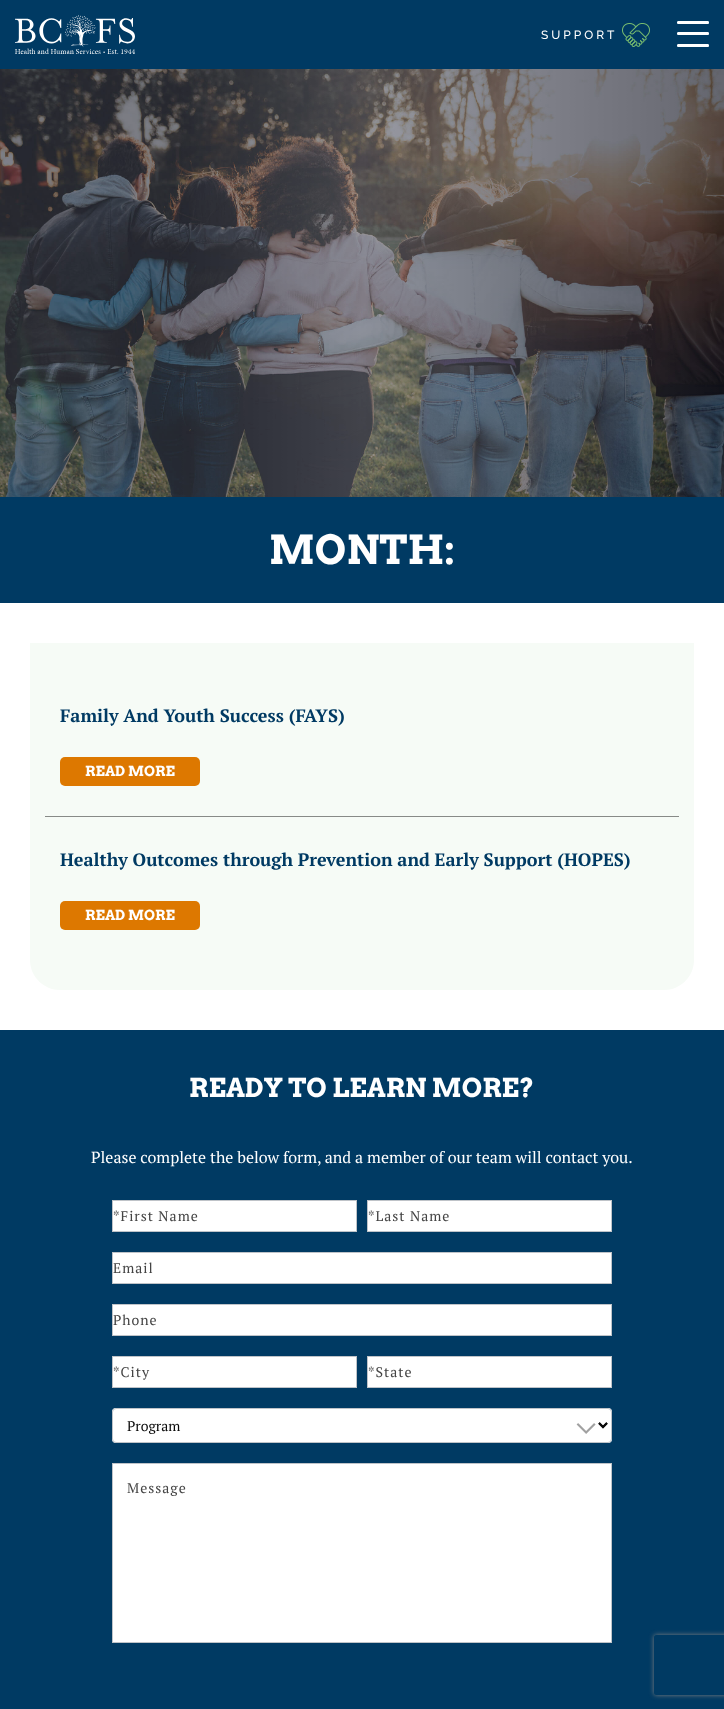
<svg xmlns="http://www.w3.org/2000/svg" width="724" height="1709">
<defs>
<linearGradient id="g1" gradientUnits="userSpaceOnUse" x1="724" y1="334" x2="0" y2="334"><stop offset="0" stop-color="#000"/><stop offset="0.5" stop-color="#808080"/><stop offset="0.75" stop-color="#404040"/></linearGradient>
<clipPath id="clip1"><path d="M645 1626h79v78h-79zm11 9h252c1 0 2 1 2 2v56c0 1-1 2-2 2h-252c-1 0-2-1-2-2v-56c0-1 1-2 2-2z" clip-rule="evenodd"/></clipPath>
</defs>
<rect width="100%" height="100%" fill="#fff"/>
<rect width="724" height="69" fill="#003a63"/>
<image x="15" y="15" width="120" height="39" href="media/1.png"/>
<image x="622" y="23" width="28" height="24" href="media/2.png"/>
<text x="541" y="39" style="font-family:Raleway;font-size:12px;font-weight:500;letter-spacing:3px;fill:#fff">SUPPORT</text>
<path d="M678.5 21h14.5v3h-14.5c-1 0-1.5-.5-1.5-1.5c0-1 .5-1.5 1.5-1.5z" fill="#fff"/>
<path d="M693 21h14.5c1 0 1.5 .5 1.5 1.5c0 1-.5 1.5-1.5 1.5h-14.5z" fill="#fff"/>
<path d="M678.5 32h14.5v3h-14.5c-1 0-1.5-.5-1.5-1.5c0-1 .5-1.5 1.5-1.5z" fill="#fff"/>
<path d="M693 32h14.5c1 0 1.5 .5 1.5 1.5c0 1-.5 1.5-1.5 1.5h-14.5z" fill="#fff"/>
<path d="M678.5 44h14.5v3h-14.5c-1 0-1.5-.5-1.5-1.5c0-1 .5-1.5 1.5-1.5z" fill="#fff"/>
<path d="M693 44h14.5c1 0 1.5 .5 1.5 1.5c0 1-.5 1.5-1.5 1.5h-14.5z" fill="#fff"/>
<rect y="69" width="724" height="428" fill="url(#g1)"/>
<image x="0" y="69" width="724" height="428" href="media/3.png"/>
<rect y="497" width="724" height="106" fill="#003a63"/>
<text x="269" y="564" style="font-family:Arvo;font-size:40px;font-weight:bold;fill:#fff">MONTH:</text>
<path d="M30 643h664v317c0 16.5-13.5 30-30 30h-604c-16.5 0-30-13.5-30-30z" fill="#f6fbf6"/>
<rect x="45" y="816" width="634" height="1" fill="#878a87"/>
<text x="60" y="722" style="font-family:PT Serif;font-size:18px;font-weight:bold;fill:#003a63">Family And Youth Success (FAYS)</text>
<rect x="60" y="757" width="140" height="29" rx="5" fill="#dd7800"/>
<text x="85" y="776" style="font-family:Arvo;font-size:14px;font-weight:bold;fill:#fff">READ MORE</text>
<text x="60" y="866" style="font-family:PT Serif;font-size:18px;font-weight:bold;fill:#003a63">Healthy Outcomes through Prevention and Early Support (HOPES)</text>
<rect x="60" y="901" width="140" height="29" rx="5" fill="#dd7800"/>
<text x="85" y="920" style="font-family:Arvo;font-size:14px;font-weight:bold;fill:#fff">READ MORE</text>
<rect y="1030" width="724" height="679" fill="#003a63"/>
<text x="189" y="1097" style="font-family:Arvo;font-size:26px;font-weight:bold;fill:#fff">READY TO LEARN MORE?</text>
<text x="91" y="1163" style="font-family:PT Serif;font-size:16px;fill:#fff">Please complete the below form, and a member of our team will contact you.</text>
<rect x="112.5" y="1200.5" width="244" height="31" fill="#fff" stroke="#bfc3c8"/>
<text x="113" y="1221" style="font-family:PT Serif;font-size:14px;letter-spacing:1px;fill:#444">*First Name</text>
<rect x="367.5" y="1200.5" width="244" height="31" fill="#fff" stroke="#bfc3c8"/>
<text x="368" y="1221" style="font-family:PT Serif;font-size:14px;letter-spacing:1px;fill:#444">*Last Name</text>
<rect x="112.5" y="1252.5" width="499" height="31" fill="#fff" stroke="#bfc3c8"/>
<text x="113" y="1273" style="font-family:PT Serif;font-size:14px;letter-spacing:1px;fill:#444">Email</text>
<rect x="112.5" y="1304.5" width="499" height="31" fill="#fff" stroke="#bfc3c8"/>
<text x="113" y="1325" style="font-family:PT Serif;font-size:14px;letter-spacing:1px;fill:#444">Phone</text>
<rect x="112.5" y="1356.5" width="244" height="31" fill="#fff" stroke="#bfc3c8"/>
<text x="113" y="1377" style="font-family:PT Serif;font-size:14px;letter-spacing:1px;fill:#444">*City</text>
<rect x="367.5" y="1356.5" width="244" height="31" fill="#fff" stroke="#bfc3c8"/>
<text x="368" y="1377" style="font-family:PT Serif;font-size:14px;letter-spacing:1px;fill:#444">*State</text>
<rect x="112" y="1408" width="500" height="35" rx="4" fill="#fff"/>
<image x="576" y="1422" width="32" height="12" href="media/4.png"/>
<rect x="112.5" y="1408.5" width="499" height="34" rx="3.5" fill="none" stroke="#bfc3c8"/>
<path d="M599 1423l4 4l4-4" fill="none" stroke="#0a0a0a" stroke-width="2"/>
<text x="127" y="1431" style="font-family:PT Serif;font-size:14px;fill:#0a0a0a">Program</text>
<rect x="112.5" y="1463.5" width="499" height="179" fill="#fff" stroke="#bfc3c8"/>
<text x="127" y="1493" style="font-family:PT Serif;font-size:14px;letter-spacing:1px;fill:#444">Message</text>
<g clip-path="url(#clip1)">
<rect x="654" y="1635" width="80" height="60" rx="2" fill="#808080" filter="blur(2.5px)"/>
</g>
</svg>
